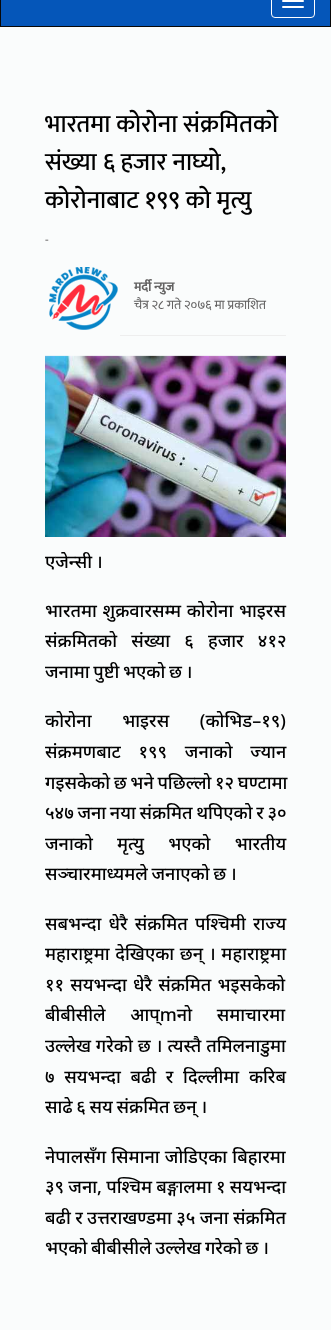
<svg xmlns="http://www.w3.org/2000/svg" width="331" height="1330">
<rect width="100%" height="100%" fill="#fafcfc"/>
<rect x="0.5" y="-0.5" width="330" height="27" fill="#0556b9" stroke="#080808"/>
<rect x="271.5" y="-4.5" width="43" height="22" rx="3.5" fill="none" stroke="#fff"/>
<rect x="282" width="22" height="2" rx="1" fill="#fff"/>
<rect x="282" y="6" width="22" height="2" rx="1" fill="#fff"/>
<text x="45" y="132" style="font-family:Mukta;font-size:25px;font-weight:500;fill:#000">भारतमा कोरोना संक्रमितको</text>
<text x="45" y="170" style="font-family:Mukta;font-size:25px;font-weight:500;fill:#000">संख्या ६ हजार नाघ्यो,</text>
<text x="45" y="208" style="font-family:Mukta;font-size:25px;font-weight:500;fill:#000">कोरोनाबाट १९९ को मृत्यु</text>
<text x="45" y="244" style="font-family:Mukta;font-size:13px;fill:#767575">-</text>
<image x="49" y="267" width="69" height="63" href="media/1.png"/>
<text x="134" y="291" style="font-family:Mukta;font-size:13px;font-weight:bold;fill:#636262">मर्दी न्युज</text>
<text x="134" y="309" style="font-family:Mukta;font-size:13px;fill:#636262">चैत्र २८ गते २०७६ मा प्रकाशित</text>
<rect x="120" y="335" width="166" height="1" fill="#eee"/>
<image x="45" y="355" width="241" height="182" href="media/2.png"/>
<text x="45" y="568" word-spacing="-1" style="font-family:Noto Sans;font-size:18px;font-weight:500;fill:#000">एजेन्सी ।</text>
<text x="45" y="617" word-spacing="1" style="font-family:Noto Sans;font-size:18px;font-weight:500;fill:#000">भारतमा शुक्रवारसम्म कोरोना भाइरस</text>
<text x="45" y="647" word-spacing="9.5" style="font-family:Noto Sans;font-size:18px;font-weight:500;fill:#000">संक्रमितको संख्या ६ हजार ४१२</text>
<text x="45" y="678" word-spacing="-1" style="font-family:Noto Sans;font-size:18px;font-weight:500;fill:#000">जनामा पुष्टी भएको छ ।</text>
<text x="45" y="727" word-spacing="26" style="font-family:Noto Sans;font-size:18px;font-weight:500;fill:#000">कोरोना भाइरस (कोभिड–१९)</text>
<text x="45" y="758" word-spacing="13" style="font-family:Noto Sans;font-size:18px;font-weight:500;fill:#000">संक्रमणबाट १९९ जनाको ज्यान</text>
<text x="45" y="789" word-spacing="-1" style="font-family:Noto Sans;font-size:18px;font-weight:500;fill:#000">गइसकेको छ भने पछिल्लो १२ घण्टामा</text>
<text x="45" y="819" word-spacing="-1" style="font-family:Noto Sans;font-size:18px;font-weight:500;fill:#000">५४७ जना नया संक्रमित थपिएको र ३०</text>
<text x="45" y="850" word-spacing="19.5" style="font-family:Noto Sans;font-size:18px;font-weight:500;fill:#000">जनाको मृत्यु भएको भारतीय</text>
<text x="45" y="880" word-spacing="-1" style="font-family:Noto Sans;font-size:18px;font-weight:500;fill:#000">सञ्चारमाध्यमले जनाएको छ ।</text>
<text x="45" y="930" word-spacing="2.5" style="font-family:Noto Sans;font-size:18px;font-weight:500;fill:#000">सबभन्दा धेरै संक्रमित पश्चिमी राज्य</text>
<text x="45" y="960" word-spacing="1" style="font-family:Noto Sans;font-size:18px;font-weight:500;fill:#000">महाराष्ट्रमा देखिएका छन् । महाराष्ट्रमा</text>
<text x="45" y="991" word-spacing="1.5" style="font-family:Noto Sans;font-size:18px;font-weight:500;fill:#000">११ सयभन्दा धेरै संक्रमित भइसकेको</text>
<text x="45" y="1021" word-spacing="20" style="font-family:Noto Sans;font-size:18px;font-weight:500;fill:#000">बीबीसीले आप्mनो समाचारमा</text>
<text x="45" y="1052" word-spacing="0.25" style="font-family:Noto Sans;font-size:18px;font-weight:500;fill:#000">उल्लेख गरेको छ । त्यस्तै तमिलनाडुमा</text>
<text x="45" y="1083" word-spacing="5" style="font-family:Noto Sans;font-size:18px;font-weight:500;fill:#000">७ सयभन्दा बढी र दिल्लीमा करिब</text>
<text x="45" y="1113" word-spacing="-1" style="font-family:Noto Sans;font-size:18px;font-weight:500;fill:#000">साढे ६ सय संक्रमित छन् ।</text>
<text x="45" y="1163" word-spacing="0.5" style="font-family:Noto Sans;font-size:18px;font-weight:500;fill:#000">नेपालसँग सिमाना जोडिएका बिहारमा</text>
<text x="45" y="1193" word-spacing="-0.5" style="font-family:Noto Sans;font-size:18px;font-weight:500;fill:#000">३९ जना, पश्चिम बङ्गालमा १ सयभन्दा</text>
<text x="45" y="1224" word-spacing="-0.25" style="font-family:Noto Sans;font-size:18px;font-weight:500;fill:#000">बढी र उत्तराखण्डमा ३५ जना संक्रमित</text>
<text x="45" y="1254" word-spacing="-1" style="font-family:Noto Sans;font-size:18px;font-weight:500;fill:#000">भएको बीबीसीले उल्लेख गरेको छ ।</text>
</svg>
